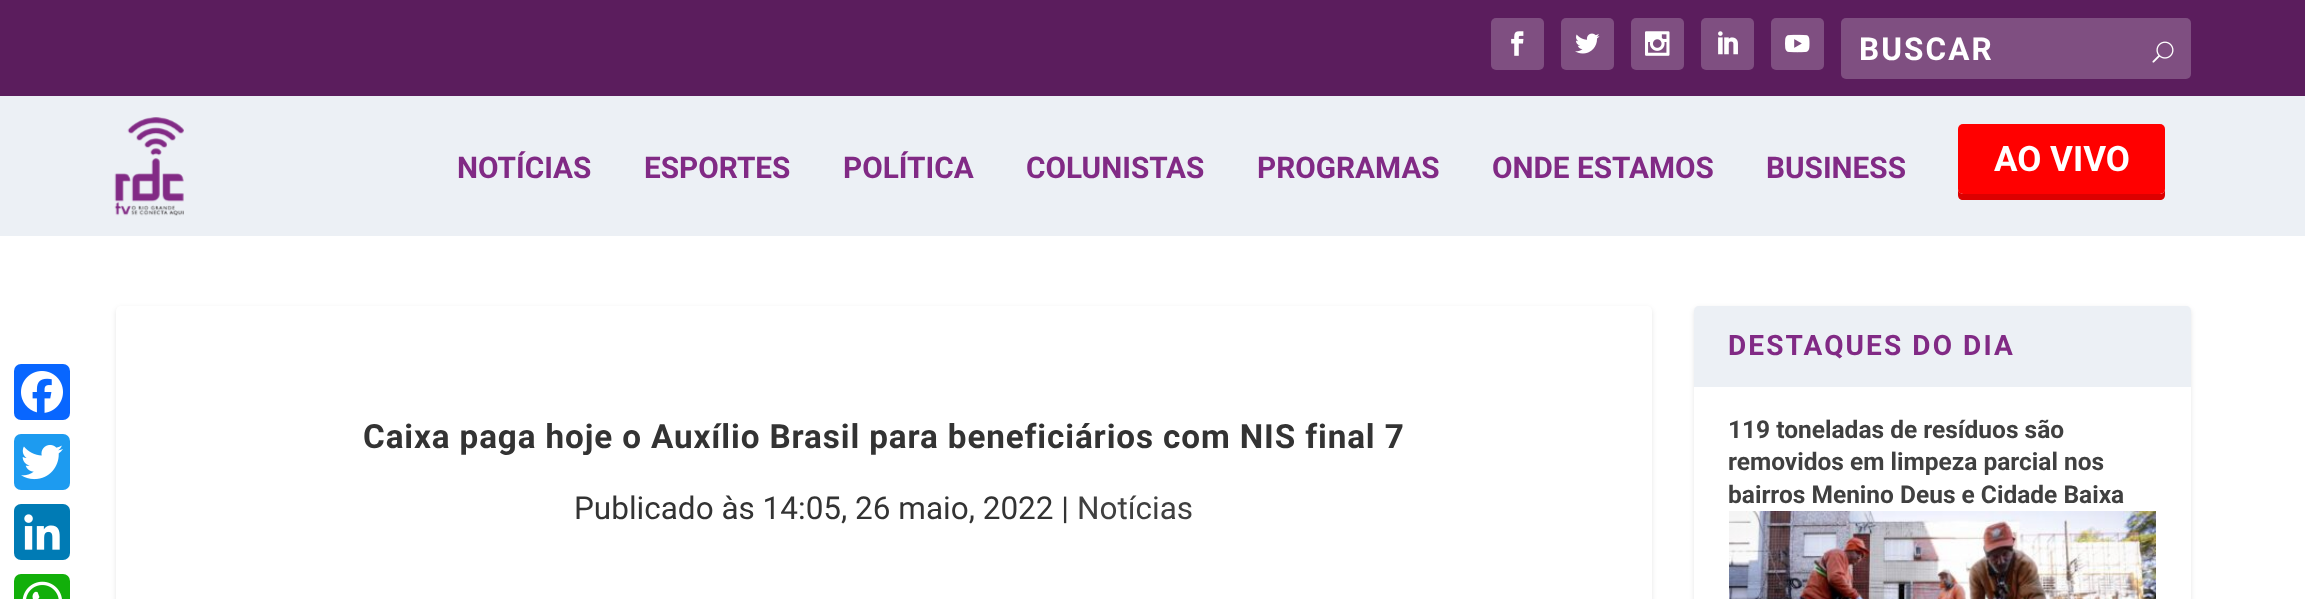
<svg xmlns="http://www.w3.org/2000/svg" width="2305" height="599">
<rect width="100%" height="100%" fill="#fff"/>
<rect x="14" y="364" width="56" height="56" rx="7" fill="#0866ff"/>
<image x="21" y="371" width="42" height="42" href="media/1.png"/>
<rect x="14" y="434" width="56" height="56" rx="7" fill="#1d9bf0"/>
<image x="21" y="444" width="42" height="36" href="media/2.png"/>
<rect x="14" y="504" width="56" height="56" rx="7" fill="#007bb5"/>
<image x="24" y="514" width="36" height="36" href="media/3.png"/>
<rect x="14" y="574" width="56" height="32" rx="7" fill="#12af0a"/>
<image x="22" y="581" width="40" height="18" href="media/4.png"/>
<rect width="2305" height="96" fill="#5b1d5d"/>
<rect x="1491" y="18" width="53" height="52" rx="5" fill="#7f4f81"/>
<image x="1511" y="31" width="13" height="25" href="media/5.png"/>
<rect x="1561" y="18" width="53" height="52" rx="5" fill="#7f4f81"/>
<image x="1575" y="33" width="25" height="21" href="media/6.png"/>
<rect x="1631" y="18" width="53" height="52" rx="5" fill="#7f4f81"/>
<image x="1645" y="31" width="25" height="25" href="media/7.png"/>
<rect x="1701" y="18" width="53" height="52" rx="5" fill="#7f4f81"/>
<image x="1718" y="31" width="20" height="24" href="media/8.png"/>
<rect x="1771" y="18" width="53" height="52" rx="5" fill="#7f4f81"/>
<image x="1785" y="34" width="25" height="19" href="media/9.png"/>
<rect x="1841" y="18" width="350" height="61" rx="5" fill="#7f4f81"/>
<text x="1859" y="60" style="font-family:Roboto;font-size:31.5px;font-weight:bold;letter-spacing:2.1px;fill:#fff">BUSCAR</text>
<image x="2152" y="41" width="22" height="22" href="media/10.png"/>
<rect y="96" width="2305" height="140" fill="#ecf0f5"/>
<image x="114" y="117" width="70" height="99" href="media/11.png"/>
<text x="457" y="178" style="font-family:Roboto;font-size:29.75px;font-weight:bold;fill:#812a85">NOTÍCIAS</text>
<text x="644" y="178" style="font-family:Roboto;font-size:29.75px;font-weight:bold;fill:#812a85">ESPORTES</text>
<text x="843" y="178" style="font-family:Roboto;font-size:29.75px;font-weight:bold;fill:#812a85">POLÍTICA</text>
<text x="1026" y="178" style="font-family:Roboto;font-size:29.75px;font-weight:bold;fill:#812a85">COLUNISTAS</text>
<text x="1257" y="178" style="font-family:Roboto;font-size:29.75px;font-weight:bold;fill:#812a85">PROGRAMAS</text>
<text x="1492" y="178" style="font-family:Roboto;font-size:29.75px;font-weight:bold;fill:#812a85">ONDE ESTAMOS</text>
<text x="1766" y="178" style="font-family:Roboto;font-size:29.75px;font-weight:bold;fill:#812a85">BUSINESS</text>
<path d="M1958 133v62c0 3 2 5 5 5h197c3 0 5-2 5-5v-62v56c0 3-3 5-5 5h-196c-3 0-6-2-6-5z" fill="#dc0000"/>
<rect x="1958" y="124" width="207" height="70" rx="5" fill="#f00"/>
<text x="1994" y="171" style="font-family:Roboto;font-size:35px;font-weight:bold;fill:#fff">AO VIVO</text>
<rect x="116" y="308" width="1536" height="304" rx="5" fill="#0000001a" filter="blur(2.5px)"/>
<rect x="116" y="306" width="1536" height="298" rx="5" fill="#fff"/>
<text x="363" y="448" style="font-family:Roboto;font-size:33.25px;font-weight:bold;letter-spacing:0.88px;fill:#333">Caixa paga hoje o Auxílio Brasil para beneficiários com NIS final 7</text>
<text x="574" y="519" style="font-family:Roboto;font-size:31.5px;fill:#333">Publicado às 14:05, 26 maio, 2022 |</text>
<text x="1077" y="519" style="font-family:Roboto;font-size:31.5px;fill:#404040">Notícias</text>
<rect x="1694" y="308" width="497" height="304" rx="5" fill="#0000001a" filter="blur(2.5px)"/>
<rect x="1694" y="306" width="497" height="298" rx="5" fill="#fff"/>
<path d="M1699 306h487c3 0 5 2 5 5v76h-497v-76c0-3 2-5 5-5z" fill="#ecf0f5"/>
<text x="1728" y="355" style="font-family:Roboto;font-size:28px;font-weight:bold;letter-spacing:2.1px;fill:#812a85">DESTAQUES DO DIA</text>
<text x="1728" y="438" style="font-family:Roboto;font-size:24.5px;font-weight:bold;fill:#404040">119 toneladas de resíduos são</text>
<text x="1728" y="470" style="font-family:Roboto;font-size:24.5px;font-weight:bold;fill:#404040">removidos em limpeza parcial nos</text>
<text x="1728" y="503" style="font-family:Roboto;font-size:24.5px;font-weight:bold;fill:#404040">bairros Menino Deus e Cidade Baixa</text>
<image x="1729" y="511" width="427" height="88" href="media/12.png"/>
</svg>
